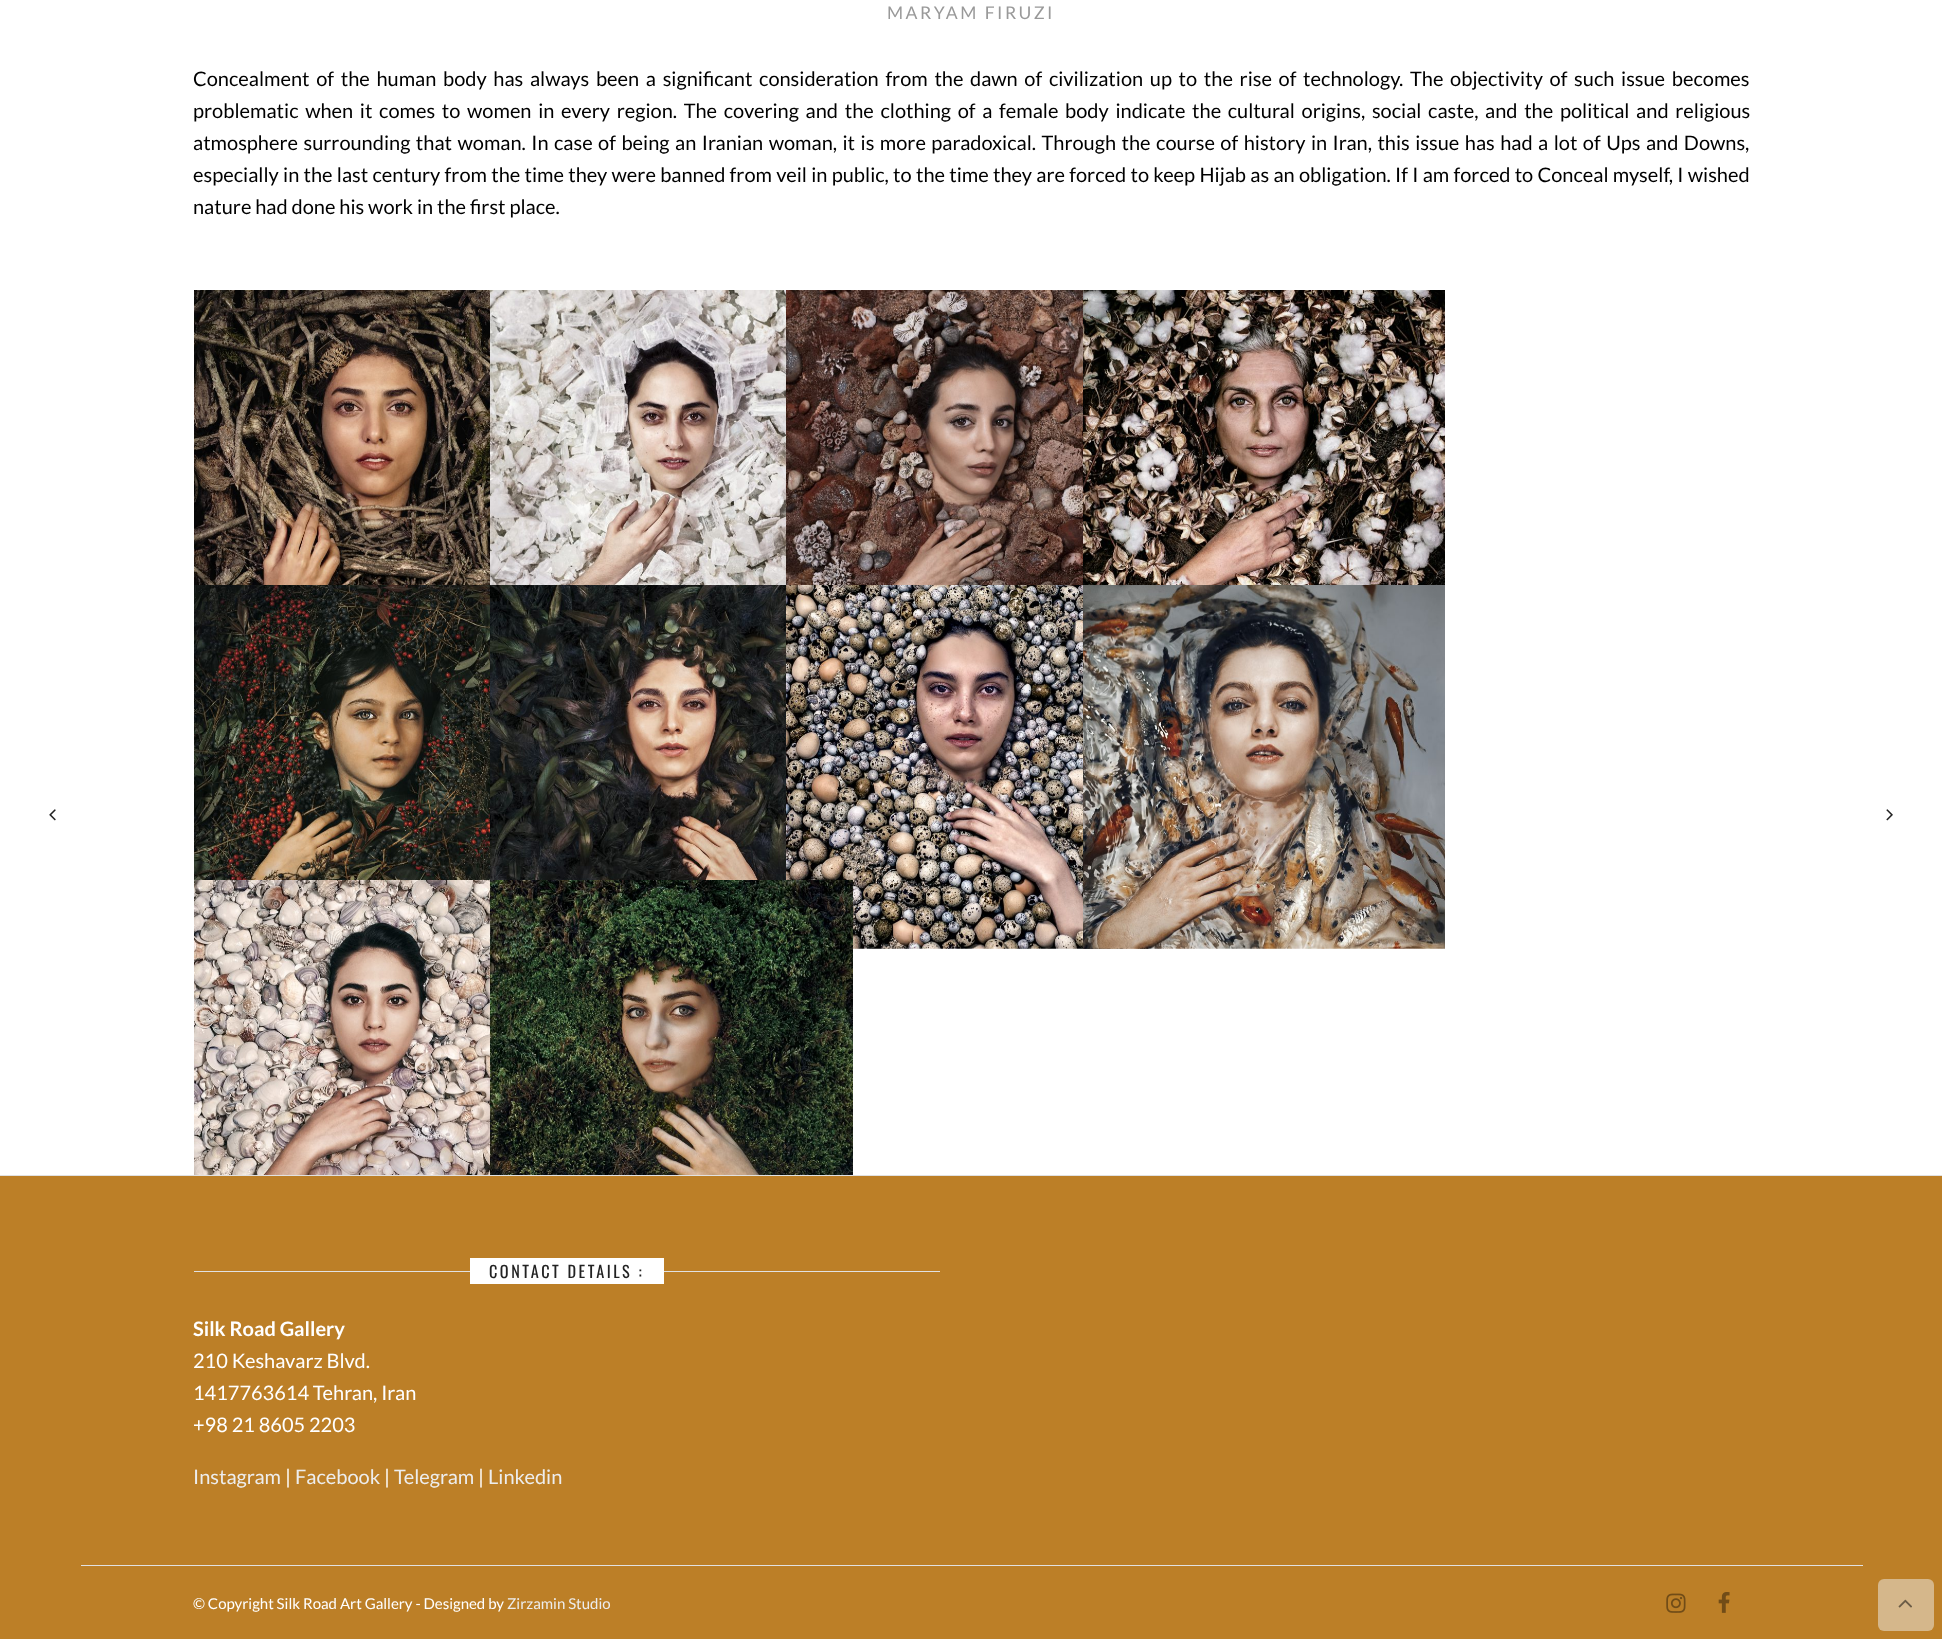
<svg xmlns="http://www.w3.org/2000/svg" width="1942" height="1639">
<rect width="100%" height="100%" fill="#fff"/>
<text x="887" y="19" style="font-family:Lato;font-size:17.5px;letter-spacing:2.5px;fill:#999">MARYAM FIRUZI</text>
<text x="193" y="86" word-spacing="2.8" style="font-family:Lato;font-size:20px;fill:#000">Concealment of the human body has always been a significant consideration from the dawn of civilization up to the rise of technology. The objectivity of such issue becomes</text>
<text x="193" y="118" word-spacing="2.8" style="font-family:Lato;font-size:20px;fill:#000">problematic when it comes to women in every region. The covering and the clothing of a female body indicate the cultural origins, social caste, and the political and religious</text>
<text x="193" y="150" word-spacing="1.6" style="font-family:Lato;font-size:20px;fill:#000">atmosphere surrounding that woman. In case of being an Iranian woman, it is more paradoxical. Through the course of history in Iran, this issue has had a lot of Ups and Downs,</text>
<text x="193" y="182" word-spacing="0.4" style="font-family:Lato;font-size:20px;fill:#000">especially in the last century from the time they were banned from veil in public, to the time they are forced to keep Hijab as an obligation. If I am forced to Conceal myself, I wished</text>
<text x="193" y="214" style="font-family:Lato;font-size:20px;fill:#000">nature had done his work in the first place.</text>
<image x="194" y="290" width="296" height="295" href="media/1.png"/>
<image x="490" y="290" width="296" height="295" href="media/2.png"/>
<image x="786" y="290" width="297" height="295" href="media/3.png"/>
<image x="1083" y="290" width="362" height="295" href="media/4.png"/>
<image x="194" y="585" width="296" height="295" href="media/5.png"/>
<image x="490" y="585" width="296" height="295" href="media/6.png"/>
<image x="786" y="585" width="363" height="364" href="media/7.png"/>
<image x="1083" y="585" width="362" height="364" href="media/8.png"/>
<image x="194" y="880" width="296" height="295" href="media/9.png"/>
<image x="490" y="880" width="363" height="295" href="media/10.png"/>
<image x="49" y="809" width="7" height="12" href="media/11.png"/>
<image x="1886" y="809" width="7" height="12" href="media/12.png"/>
<rect y="1176" width="1942" height="463" fill="#bc7f27"/>
<rect y="1175" width="1942" height="1" fill="#e1e1e1"/>
<rect x="194" y="1271" width="746" height="1" fill="#e1e1e1"/>
<rect x="470" y="1258" width="194" height="26" fill="#fff"/>
<text x="489" y="1278" style="font-family:Oswald;font-size:16.25px;letter-spacing:2.5px;fill:#222">CONTACT DETAILS :</text>
<text x="193" y="1336" style="font-family:Lato;font-size:20px;font-weight:bold;fill:#fff">Silk Road Gallery</text>
<text x="193" y="1368" style="font-family:Lato;font-size:20px;fill:#fff">210 Keshavarz Blvd.</text>
<text x="193" y="1400" style="font-family:Lato;font-size:20px;fill:#fff">1417763614 Tehran, Iran</text>
<text x="193" y="1432" style="font-family:Lato;font-size:20px;fill:#fff">+98 21 8605 2203</text>
<text x="193" y="1484" style="font-family:Lato;font-size:20px;fill:#ededed">Instagram</text>
<text x="285" y="1484" style="font-family:Lato;font-size:20px;fill:#fff">|</text>
<text x="295" y="1484" style="font-family:Lato;font-size:20px;fill:#ededed">Facebook</text>
<text x="384" y="1484" style="font-family:Lato;font-size:20px;fill:#fff">|</text>
<text x="394" y="1484" style="font-family:Lato;font-size:20px;fill:#ededed">Telegram</text>
<text x="478" y="1484" style="font-family:Lato;font-size:20px;fill:#fff">|</text>
<text x="488" y="1484" style="font-family:Lato;font-size:20px;fill:#ededed">Linkedin</text>
<rect x="81" y="1565" width="1782" height="1" fill="#e1e1e1"/>
<text x="193" y="1609" style="font-family:Lato;font-size:15px;fill:#fff">© Copyright Silk Road Art Gallery - Designed by</text>
<text x="507" y="1609" style="font-family:Lato;font-size:15px;fill:#ededed">Zirzamin Studio</text>
<image x="1666" y="1593" width="20" height="20" href="media/13.png"/>
<image x="1718" y="1592" width="12" height="21" href="media/14.png"/>
<rect x="1878" y="1579" width="56" height="52" rx="6" fill="#d5b78b"/>
<image x="1898" y="1599" width="14" height="9" href="media/15.png"/>
</svg>
